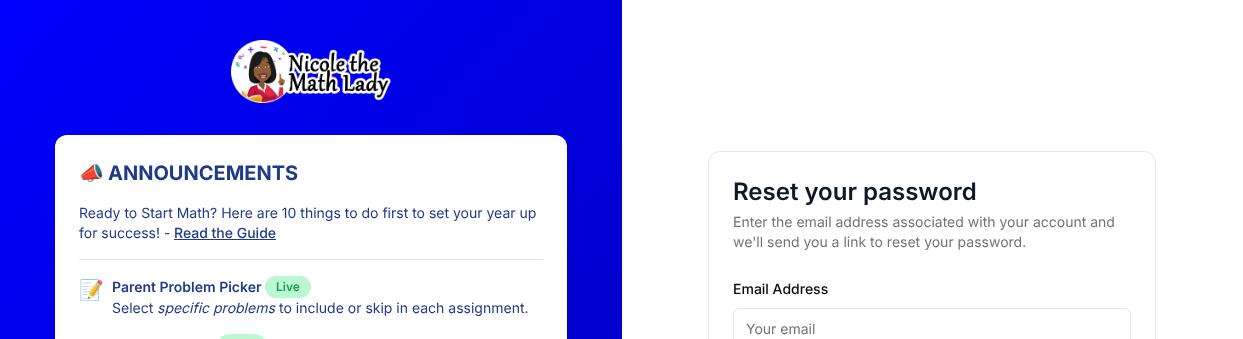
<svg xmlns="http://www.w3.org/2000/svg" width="1243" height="339">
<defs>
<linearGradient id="g1" gradientUnits="userSpaceOnUse" x1="-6.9" y1="7.1" x2="629" y2="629"><stop offset="0" stop-color="#00f"/><stop offset="1" stop-color="#0000bf"/></linearGradient>
</defs>
<rect width="100%" height="100%" fill="#fff"/>
<rect width="622" height="339" fill="url(#g1)"/>
<image x="231" y="40" width="160" height="63" href="media/1.png"/>
<rect x="58" y="148" width="506" height="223" rx="9" fill="#0000001a" filter="blur(7.5px)"/>
<rect x="55" y="135" width="512" height="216" rx="12" fill="#fff"/>
<text x="79" y="180" style="font-family:Noto Color Emoji;font-size:20px;font-weight:bold;fill:#1e3a8a">📣</text>
<text x="108" y="180" style="font-family:Inter;font-size:20px;font-weight:bold;fill:#1e3a8a">ANNOUNCEMENTS</text>
<text x="79" y="218" style="font-family:Inter;font-size:14px;fill:#1e3a8a">Ready to Start Math? Here are 10 things to do first to set your year up</text>
<text x="79" y="238" style="font-family:Inter;font-size:14px;fill:#1e3a8a">for success! -</text>
<text x="174" y="238" style="font-family:Inter;font-size:14px;font-weight:500;fill:#1e3a8a">Read the Guide</text>
<rect x="174" y="239" width="102" height="1" fill="#1e3a8a"/>
<rect x="79" y="259" width="464" height="1" fill="#e5e5e5"/>
<text x="79" y="297" style="font-family:Noto Color Emoji;font-size:20px;fill:#1e3a8a">📝</text>
<text x="112" y="292" style="font-family:Inter;font-size:14px;font-weight:600;fill:#1e3a8a">Parent Problem Picker</text>
<rect x="265" y="276" width="46" height="22" rx="11" fill="#bbf7d0"/>
<text x="276" y="291" style="font-family:Inter;font-size:12px;font-weight:600;fill:#16a34a">Live</text>
<text x="112" y="313" style="font-family:Inter;font-size:14px;fill:#1e3a8a">Select</text>
<text x="157" y="313" style="font-family:Inter;font-size:14px;font-style:italic;fill:#1e3a8a">specific problems</text>
<text x="279" y="313" style="font-family:Inter;font-size:14px;fill:#1e3a8a">to include or skip in each assignment.</text>
<rect x="219" y="334" width="46" height="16" rx="11" fill="#bbf7d0"/>
<rect x="708.5" y="151.5" width="447" height="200" rx="11.5" fill="none" stroke="#e5e7eb"/>
<text x="733" y="200" style="font-family:Inter;font-size:24px;font-weight:600;fill:#111827">Reset your password</text>
<text x="733" y="227" style="font-family:Inter;font-size:14px;fill:#737373">Enter the email address associated with your account and</text>
<text x="733" y="247" style="font-family:Inter;font-size:14px;fill:#737373">we'll send you a link to reset your password.</text>
<text x="733" y="294" style="font-family:Inter;font-size:14px;font-weight:500;fill:#0a0a0a">Email Address</text>
<rect x="733.5" y="308.5" width="397" height="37" rx="5.5" fill="none" stroke="#e5e5e5"/>
<text x="746" y="334" style="font-family:Inter;font-size:14px;fill:#737373">Your email</text>
</svg>
